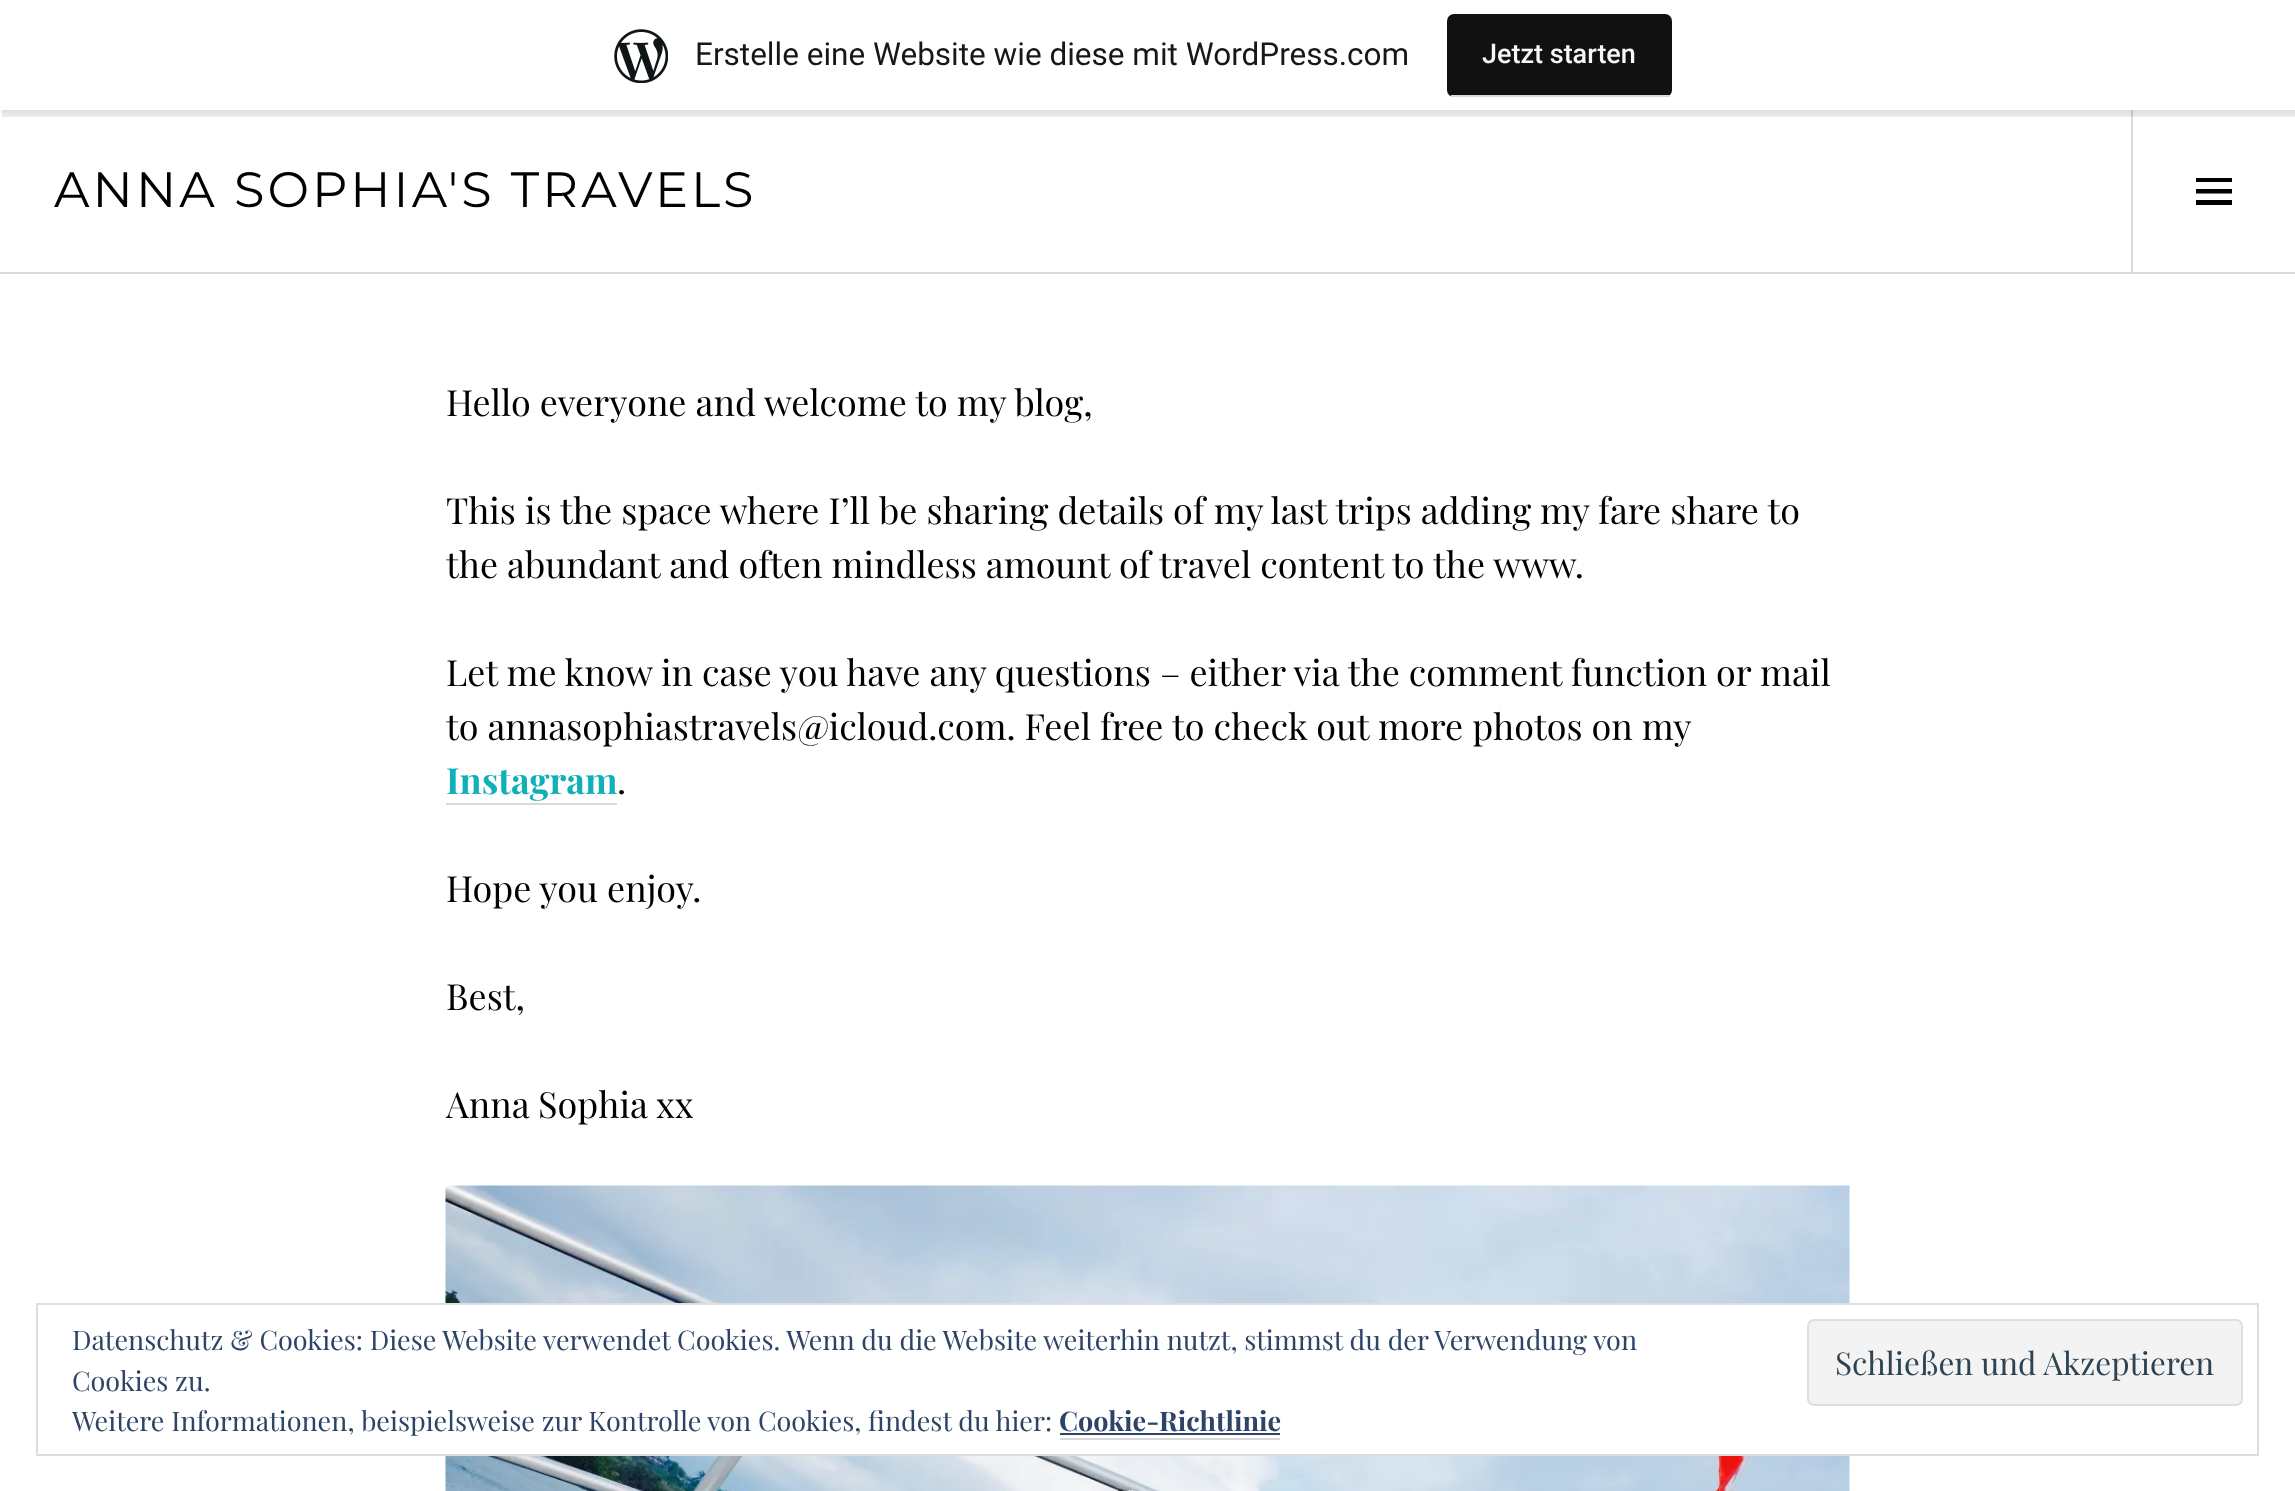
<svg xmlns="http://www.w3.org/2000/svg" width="2295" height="1491">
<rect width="100%" height="100%" fill="#fff"/>
<rect x="2131" y="110" width="2" height="162" fill="#d9d9d9"/>
<rect y="2" width="2295" height="111" fill="#0000000d" filter="blur(2px)"/>
<path d="M2 110v7h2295v-110h-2v103z" fill="#00000014"/>
<rect width="2295" height="110" fill="#fff"/>
<image x="614" y="29" width="54" height="54" href="media/1.png"/>
<text x="695" y="65" style="font-family:Roboto;font-size:31.5px;fill:#171717">Erstelle eine Website wie diese mit WordPress.com</text>
<rect x="1447" y="14" width="225" height="83" rx="7" fill="#111"/>
<rect x="1451" y="95" width="219" height="2" fill="#d9d9d9"/>
<text x="1482" y="63" style="font-family:Roboto;font-size:27px;font-weight:500;fill:#f6f7f7">Jetzt starten</text>
<rect y="272" width="2295" height="2" fill="#d9d9d9"/>
<text x="54" y="207" style="font-family:Montserrat;font-size:49.5px;letter-spacing:3.1px;fill:#000">ANNA SOPHIA'S TRAVELS</text>
<path d="M2196 205v-5h36v5zm0-27h36v4h-36zm0 15.5v-4.5h36v4.5z" fill="#000"/>
<text x="446" y="416" style="font-family:Playfair Display;font-size:36px;fill:#000">Hello everyone and welcome to my blog,</text>
<text x="446" y="524" style="font-family:Playfair Display;font-size:36px;fill:#000">This is the space where I’ll be sharing details of my last trips adding my fare share to</text>
<text x="446" y="578" style="font-family:Playfair Display;font-size:36px;fill:#000">the abundant and often mindless amount of travel content to the www.</text>
<text x="446" y="686" style="font-family:Playfair Display;font-size:36px;fill:#000">Let me know in case you have any questions – either via the comment function or mail</text>
<text x="446" y="740" style="font-family:Playfair Display;font-size:36px;fill:#000">to annasophiastravels@icloud.com. Feel free to check out more photos on my</text>
<text x="446" y="794" style="font-family:Playfair Display;font-size:36px;font-weight:bold;fill:#10b0b8">Instagram</text>
<rect x="446" y="803" width="171" height="2" fill="#d9d9d9"/>
<text x="617" y="794" style="font-family:Playfair Display;font-size:36px;fill:#000">.</text>
<text x="446" y="902" style="font-family:Playfair Display;font-size:36px;fill:#000">Hope you enjoy.</text>
<text x="446" y="1010" style="font-family:Playfair Display;font-size:36px;fill:#000">Best,</text>
<text x="446" y="1118" style="font-family:Playfair Display;font-size:36px;fill:#000">Anna Sophia xx</text>
<image x="445" y="1185" width="1405" height="306" href="media/2.png"/>
<rect x="445" y="1305" width="1405" height="149" fill="#fff"/>
<rect x="37" y="1304" width="2221" height="151" fill="none" stroke="#dedede" stroke-width="2"/>
<text x="72" y="1350" style="font-family:Playfair Display;font-size:27px;fill:#2e4467">Datenschutz &amp; Cookies: Diese Website verwendet Cookies. Wenn du die Website weiterhin nutzt, stimmst du der Verwendung von</text>
<text x="72" y="1391" style="font-family:Playfair Display;font-size:27px;fill:#2e4467">Cookies zu.</text>
<rect x="1808" y="1320" width="434" height="85" rx="6" fill="#f3f3f3" stroke="#dedede" stroke-width="2"/>
<text x="1835" y="1375" style="font-family:Playfair Display;font-size:31.5px;fill:#2e4453">Schließen und Akzeptieren</text>
<text x="72" y="1431" style="font-family:Playfair Display;font-size:27px;fill:#2e4467">Weitere Informationen, beispielsweise zur Kontrolle von Cookies, findest du hier:</text>
<text x="1059" y="1431" style="font-family:Playfair Display;font-size:27px;font-weight:bold;fill:#2e4467">Cookie-Richtlinie</text>
<rect x="1060" y="1438" width="220" height="2" fill="#d9d9d9"/>
<rect x="1060" y="1433" width="220" height="2" fill="#2e4467"/>
</svg>
